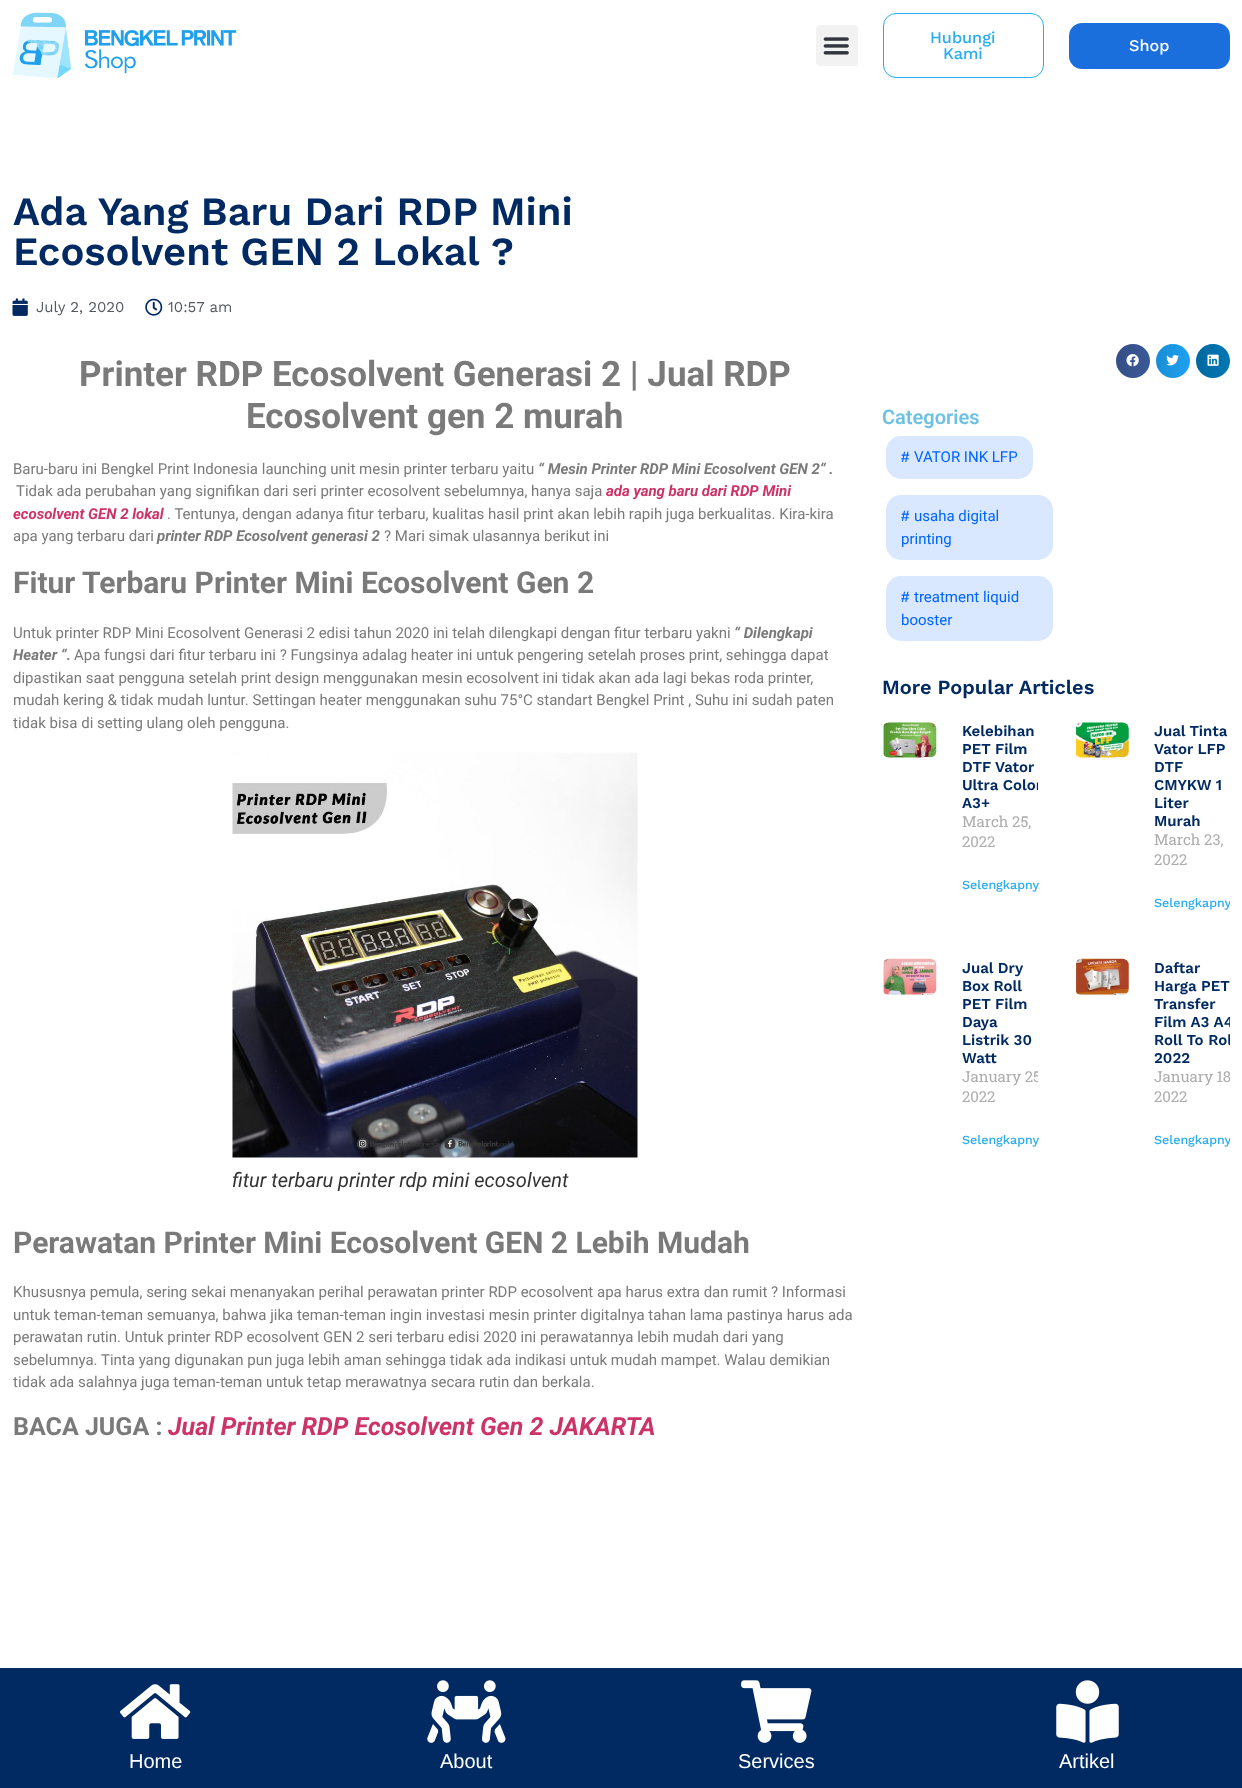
<svg xmlns="http://www.w3.org/2000/svg" width="1242" height="1788">
<defs>
<linearGradient id="g1" gradientUnits="userSpaceOnUse" x1="1116" y1="361" x2="1150" y2="361"><stop offset="0" stop-color="#000" stop-opacity="0.12"/><stop offset="1" stop-color="#000" stop-opacity="0"/></linearGradient>
<linearGradient id="g2" gradientUnits="userSpaceOnUse" x1="1156" y1="361" x2="1190" y2="361"><stop offset="0" stop-color="#000" stop-opacity="0.12"/><stop offset="1" stop-color="#000" stop-opacity="0"/></linearGradient>
<linearGradient id="g3" gradientUnits="userSpaceOnUse" x1="1196" y1="361" x2="1230" y2="361"><stop offset="0" stop-color="#000" stop-opacity="0.12"/><stop offset="1" stop-color="#000" stop-opacity="0"/></linearGradient>
<clipPath id="clip1"><rect x="883" y="723" width="155" height="192"/></clipPath>
<clipPath id="clip2"><rect x="1075" y="723" width="155" height="192"/></clipPath>
<clipPath id="clip3"><rect x="883" y="959" width="155" height="194"/></clipPath>
<clipPath id="clip4"><rect x="1075" y="959" width="155" height="194"/></clipPath>
</defs>
<rect width="100%" height="100%" fill="#fff"/>
<image x="12" y="12" width="225" height="67" href="media/1.png"/>
<rect x="816" y="25" width="42" height="41" rx="4" fill="#f2f2f2"/>
<image x="823" y="37" width="26" height="18" href="media/2.png"/>
<rect x="883.5" y="13.5" width="160" height="64" rx="12.5" fill="none" stroke="#29acf1"/>
<text x="930" y="43" style="font-family:Work Sans;font-size:16.25px;font-weight:500;fill:#29acf1">Hubungi</text>
<text x="943" y="59" style="font-family:Work Sans;font-size:16.25px;font-weight:500;fill:#29acf1">Kami</text>
<rect x="1069" y="23" width="161" height="46" rx="13" fill="#1a6fdd"/>
<text x="1129" y="51" style="font-family:Work Sans;font-size:16.25px;font-weight:500;fill:#fff">Shop</text>
<text x="13" y="225" style="font-family:Work Sans;font-size:40px;font-weight:600;fill:#002a61">Ada Yang Baru Dari RDP Mini</text>
<text x="13" y="265" style="font-family:Work Sans;font-size:40px;font-weight:600;fill:#002a61">Ecosolvent GEN 2 Lokal ?</text>
<image x="12" y="298" width="16" height="18" href="media/3.png"/>
<text x="36" y="312" style="font-family:Work Sans;font-size:15px;fill:#54595f">July 2, 2020</text>
<image x="145" y="298" width="18" height="18" href="media/4.png"/>
<text x="168" y="312" style="font-family:Work Sans;font-size:15px;fill:#54595f">10:57 am</text>
<text x="79" y="386" style="font-family:Roboto;font-size:35px;font-weight:bold;fill:#7a7a7a">Printer RDP Ecosolvent Generasi 2 | Jual RDP</text>
<text x="246" y="428" style="font-family:Roboto;font-size:35px;font-weight:bold;fill:#7a7a7a">Ecosolvent gen 2 murah</text>
<text x="13" y="474" style="font-family:Roboto;font-size:15px;fill:#7a7a7a">Baru-baru ini Bengkel Print Indonesia launching unit mesin printer terbaru yaitu</text>
<text x="538" y="474" style="font-family:Roboto;font-size:15px;font-weight:bold;font-style:italic;fill:#7a7a7a">“ Mesin Printer RDP Mini Ecosolvent GEN 2“ .</text>
<text x="16" y="496" style="font-family:Roboto;font-size:15px;fill:#7a7a7a">Tidak ada perubahan yang signifikan dari seri printer ecosolvent sebelumnya, hanya saja</text>
<text x="606" y="496" style="font-family:Roboto;font-size:15px;font-weight:bold;font-style:italic;fill:#c36">ada yang baru dari RDP Mini</text>
<text x="13" y="519" style="font-family:Roboto;font-size:15px;font-weight:bold;font-style:italic;fill:#c36">ecosolvent GEN 2 lokal</text>
<text x="167" y="519" style="font-family:Roboto;font-size:15px;fill:#7a7a7a">. Tentunya, dengan adanya fitur terbaru, kualitas hasil print akan lebih rapih juga berkualitas. Kira-kira</text>
<text x="13" y="541" style="font-family:Roboto;font-size:15px;fill:#7a7a7a">apa yang terbaru dari</text>
<text x="157" y="541" style="font-family:Roboto;font-size:15px;font-weight:bold;font-style:italic;fill:#7a7a7a">printer RDP Ecosolvent generasi 2</text>
<text x="384" y="541" style="font-family:Roboto;font-size:15px;fill:#7a7a7a">? Mari simak ulasannya berikut ini</text>
<text x="13" y="593" style="font-family:Roboto;font-size:30px;font-weight:bold;fill:#7a7a7a">Fitur Terbaru Printer Mini Ecosolvent Gen 2</text>
<text x="13" y="638" style="font-family:Roboto;font-size:15px;fill:#7a7a7a">Untuk printer RDP Mini Ecosolvent Generasi 2 edisi tahun 2020 ini telah dilengkapi dengan fitur terbaru yakni</text>
<text x="734" y="638" style="font-family:Roboto;font-size:15px;font-weight:bold;font-style:italic;fill:#7a7a7a">“ Dilengkapi</text>
<text x="13" y="660" style="font-family:Roboto;font-size:15px;font-weight:bold;font-style:italic;fill:#7a7a7a">Heater “.</text>
<text x="74" y="660" style="font-family:Roboto;font-size:15px;fill:#7a7a7a">Apa fungsi dari fitur terbaru ini ? Fungsinya adalag heater ini untuk pengering setelah proses print, sehingga dapat</text>
<text x="13" y="683" style="font-family:Roboto;font-size:15px;fill:#7a7a7a">dipastikan saat pengguna setelah print design menggunakan mesin ecosolvent ini tidak akan ada lagi bekas roda printer,</text>
<text x="13" y="705" style="font-family:Roboto;font-size:15px;fill:#7a7a7a">mudah kering &amp; tidak mudah luntur. Settingan heater menggunakan suhu 75°C standart Bengkel Print , Suhu ini sudah paten</text>
<text x="13" y="728" style="font-family:Roboto;font-size:15px;fill:#7a7a7a">tidak bisa di setting ulang oleh pengguna.</text>
<image x="232" y="752" width="406" height="406" href="media/5.png"/>
<text x="232" y="1187" style="font-family:Roboto;font-size:20px;font-style:italic;fill:#333">fitur terbaru printer rdp mini ecosolvent</text>
<text x="13" y="1253" style="font-family:Roboto;font-size:30px;font-weight:bold;fill:#7a7a7a">Perawatan Printer Mini Ecosolvent GEN 2 Lebih Mudah</text>
<text x="13" y="1297" style="font-family:Roboto;font-size:15px;fill:#7a7a7a">Khususnya pemula, sering sekai menanyakan perihal perawatan printer RDP ecosolvent apa harus extra dan rumit ? Informasi</text>
<text x="13" y="1320" style="font-family:Roboto;font-size:15px;fill:#7a7a7a">untuk teman-teman semuanya, bahwa jika teman-teman ingin investasi mesin printer digitalnya tahan lama pastinya harus ada</text>
<text x="13" y="1342" style="font-family:Roboto;font-size:15px;fill:#7a7a7a">perawatan rutin. Untuk printer RDP ecosolvent GEN 2 seri terbaru edisi 2020 ini perawatannya lebih mudah dari yang</text>
<text x="13" y="1365" style="font-family:Roboto;font-size:15px;fill:#7a7a7a">sebelumnya. Tinta yang digunakan pun juga lebih aman sehingga tidak ada indikasi untuk mudah mampet. Walau demikian</text>
<text x="13" y="1387" style="font-family:Roboto;font-size:15px;fill:#7a7a7a">tidak ada salahnya juga teman-teman untuk tetap merawatnya secara rutin dan berkala.</text>
<text x="13" y="1435" style="font-family:Roboto;font-size:25px;font-weight:bold;fill:#7a7a7a">BACA JUGA :</text>
<text x="168" y="1435" style="font-family:Roboto;font-size:25px;font-weight:bold;font-style:italic;fill:#c36">Jual Printer RDP Ecosolvent Gen 2 JAKARTA</text>
<circle cx="1133" cy="361" r="17" fill="#3b5998"/>
<circle cx="1133" cy="361" r="17" fill="url(#g1)"/>
<image x="1126" y="354" width="13" height="13" href="media/6.png"/>
<circle cx="1173" cy="361" r="17" fill="#1da1f2"/>
<circle cx="1173" cy="361" r="17" fill="url(#g2)"/>
<image x="1166" y="355" width="13" height="11" href="media/7.png"/>
<circle cx="1213" cy="361" r="17" fill="#0077b5"/>
<circle cx="1213" cy="361" r="17" fill="url(#g3)"/>
<image x="1207" y="354" width="12" height="12" href="media/8.png"/>
<text x="882" y="424" style="font-family:Roboto;font-size:20px;font-weight:600;fill:#6ec1e4">Categories</text>
<rect x="886" y="436" width="147" height="43" rx="15" fill="#d9e8ff"/>
<text x="901" y="462" style="font-family:Liberation Sans;font-size:15px;font-weight:bold;fill:#0164ff">#</text>
<text x="914" y="462" style="font-family:Roboto;font-size:15px;fill:#0164ff">VATOR INK LFP</text>
<rect x="886" y="495" width="167" height="65" rx="15" fill="#d9e8ff"/>
<text x="901" y="521" style="font-family:Liberation Sans;font-size:15px;font-weight:bold;fill:#0164ff">#</text>
<text x="914" y="521" style="font-family:Roboto;font-size:15px;fill:#0164ff">usaha digital</text>
<text x="901" y="544" style="font-family:Roboto;font-size:15px;fill:#0164ff">printing</text>
<rect x="886" y="576" width="167" height="65" rx="15" fill="#d9e8ff"/>
<text x="901" y="602" style="font-family:Liberation Sans;font-size:15px;font-weight:bold;fill:#0164ff">#</text>
<text x="914" y="602" style="font-family:Roboto;font-size:15px;fill:#0164ff">treatment liquid</text>
<text x="901" y="625" style="font-family:Roboto;font-size:15px;fill:#0164ff">booster</text>
<text x="882" y="694" style="font-family:Work Sans;font-size:20px;font-weight:600;fill:#002a61">More Popular Articles</text>
<image x="883" y="722" width="54" height="36" href="media/9.png"/>
<text x="962" y="736" style="font-family:Work Sans;font-size:15px;font-weight:600;fill:#002a61">Kelebihan</text>
<text x="962" y="754" style="font-family:Work Sans;font-size:15px;font-weight:600;fill:#002a61">PET Film</text>
<text x="962" y="772" style="font-family:Work Sans;font-size:15px;font-weight:600;fill:#002a61">DTF Vator</text>
<g clip-path="url(#clip1)">
<text x="962" y="790" style="font-family:Work Sans;font-size:15px;font-weight:600;fill:#002a61">Ultra Color</text>
</g>
<text x="962" y="808" style="font-family:Work Sans;font-size:15px;font-weight:600;fill:#002a61">A3+</text>
<text x="962" y="827" style="font-family:Roboto Slab;font-size:15px;fill:#adadad">March 25,</text>
<text x="962" y="847" style="font-family:Roboto Slab;font-size:15px;fill:#adadad">2022</text>
<text x="962" y="889" style="font-family:Work Sans;font-size:12.5px;font-weight:500;fill:#29acf1">Selengkapny</text>
<image x="1076" y="722" width="53" height="36" href="media/10.png"/>
<text x="1154" y="736" style="font-family:Work Sans;font-size:15px;font-weight:600;fill:#002a61">Jual Tinta</text>
<text x="1154" y="754" style="font-family:Work Sans;font-size:15px;font-weight:600;fill:#002a61">Vator LFP</text>
<text x="1154" y="772" style="font-family:Work Sans;font-size:15px;font-weight:600;fill:#002a61">DTF</text>
<text x="1154" y="790" style="font-family:Work Sans;font-size:15px;font-weight:600;fill:#002a61">CMYKW 1</text>
<text x="1154" y="808" style="font-family:Work Sans;font-size:15px;font-weight:600;fill:#002a61">Liter</text>
<text x="1154" y="826" style="font-family:Work Sans;font-size:15px;font-weight:600;fill:#002a61">Murah</text>
<text x="1154" y="845" style="font-family:Roboto Slab;font-size:15px;fill:#adadad">March 23,</text>
<text x="1154" y="865" style="font-family:Roboto Slab;font-size:15px;fill:#adadad">2022</text>
<g clip-path="url(#clip2)">
<text x="1154" y="907" style="font-family:Work Sans;font-size:12.5px;font-weight:500;fill:#29acf1">Selengkapny</text>
</g>
<image x="883" y="958" width="54" height="37" href="media/11.png"/>
<text x="962" y="973" style="font-family:Work Sans;font-size:15px;font-weight:600;fill:#002a61">Jual Dry</text>
<text x="962" y="991" style="font-family:Work Sans;font-size:15px;font-weight:600;fill:#002a61">Box Roll</text>
<text x="962" y="1009" style="font-family:Work Sans;font-size:15px;font-weight:600;fill:#002a61">PET Film</text>
<text x="962" y="1027" style="font-family:Work Sans;font-size:15px;font-weight:600;fill:#002a61">Daya</text>
<text x="962" y="1045" style="font-family:Work Sans;font-size:15px;font-weight:600;fill:#002a61">Listrik 30</text>
<text x="962" y="1063" style="font-family:Work Sans;font-size:15px;font-weight:600;fill:#002a61">Watt</text>
<g clip-path="url(#clip3)">
<text x="962" y="1082" style="font-family:Roboto Slab;font-size:15px;fill:#adadad">January 25</text>
</g>
<text x="962" y="1102" style="font-family:Roboto Slab;font-size:15px;fill:#adadad">2022</text>
<text x="962" y="1144" style="font-family:Work Sans;font-size:12.5px;font-weight:500;fill:#29acf1">Selengkapny</text>
<image x="1076" y="958" width="53" height="37" href="media/12.png"/>
<text x="1154" y="973" style="font-family:Work Sans;font-size:15px;font-weight:600;fill:#002a61">Daftar</text>
<text x="1154" y="991" style="font-family:Work Sans;font-size:15px;font-weight:600;fill:#002a61">Harga PET</text>
<text x="1154" y="1009" style="font-family:Work Sans;font-size:15px;font-weight:600;fill:#002a61">Transfer</text>
<g clip-path="url(#clip4)">
<text x="1154" y="1027" style="font-family:Work Sans;font-size:15px;font-weight:600;fill:#002a61">Film A3 A4</text>
<text x="1154" y="1045" style="font-family:Work Sans;font-size:15px;font-weight:600;fill:#002a61">Roll To Rol</text>
</g>
<text x="1154" y="1063" style="font-family:Work Sans;font-size:15px;font-weight:600;fill:#002a61">2022</text>
<g clip-path="url(#clip4)">
<text x="1154" y="1082" style="font-family:Roboto Slab;font-size:15px;fill:#adadad">January 18</text>
</g>
<text x="1154" y="1102" style="font-family:Roboto Slab;font-size:15px;fill:#adadad">2022</text>
<g clip-path="url(#clip4)">
<text x="1154" y="1144" style="font-family:Work Sans;font-size:12.5px;font-weight:500;fill:#29acf1">Selengkapny</text>
</g>
<rect y="1668" width="1242" height="120" fill="#002a61"/>
<image x="120" y="1684" width="71" height="55" href="media/13.png"/>
<text x="129" y="1768" style="font-family:Liberation Sans;font-size:20px;fill:#fff">Home</text>
<image x="427" y="1680" width="79" height="63" href="media/14.png"/>
<text x="440" y="1768" style="font-family:Liberation Sans;font-size:20px;fill:#fff">About</text>
<image x="741" y="1680" width="71" height="63" href="media/15.png"/>
<text x="738" y="1768" style="font-family:Liberation Sans;font-size:20px;fill:#fff">Services</text>
<image x="1056" y="1680" width="63" height="63" href="media/16.png"/>
<text x="1059" y="1768" style="font-family:Liberation Sans;font-size:20px;fill:#fff">Artikel</text>
</svg>
